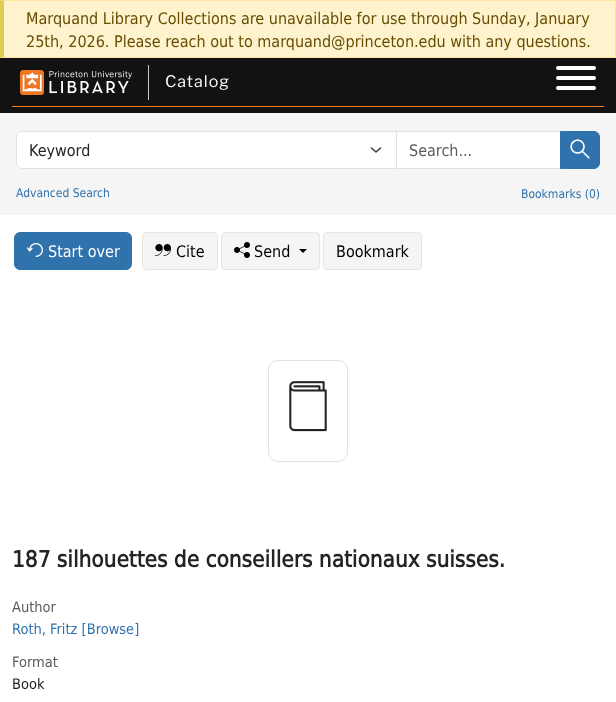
<svg xmlns="http://www.w3.org/2000/svg" width="616" height="702">
<rect width="100%" height="100%" fill="#f5f5f5"/>
<rect x="4" y="1" width="611" height="56" fill="#fff3cd"/>
<path d="M0 0h616l-1 1h-611z" fill="#ffe69c"/>
<rect x="615" width="1" height="58" fill="#ffe69c"/>
<path d="M616 58h-616l4-1h611z" fill="#ffe69c"/>
<path d="M0 58v-58l4 1v56z" fill="#e0cb52"/>
<text x="26" y="24" style="font-family:DejaVu Sans;font-size:16px;fill:#664d03">Marquand Library Collections are unavailable for use through Sunday, January</text>
<text x="26" y="47" style="font-family:DejaVu Sans;font-size:16px;fill:#664d03">25th, 2026. Please reach out to marquand@princeton.edu with any questions.</text>
<rect y="58" width="616" height="55" fill="#121212"/>
<rect x="12" y="106" width="592" height="1" fill="#f58025"/>
<image x="20" y="70" width="112" height="25" href="media/1.png"/>
<rect x="148" y="65" width="1" height="35" fill="#c5c8ce"/>
<text x="165" y="87" style="font-family:Libre Franklin;font-size:16px;letter-spacing:1px;fill:#fff">Catalog</text>
<rect x="556" y="76" width="40" height="4" rx="2" fill="#fff"/>
<rect x="556" y="66" width="40" height="4" rx="2" fill="#fff"/>
<rect x="556" y="86" width="40" height="4" rx="2" fill="#fff"/>
<rect x="396.5" y="131.5" width="164" height="37" fill="#fff" stroke="#dee2e6"/>
<path d="M22 131h375v38h-375c-3.5 0-6-2.5-6-6v-26c0-3.5 2.5-6 6-6z" fill="#fff"/>
<path d="M371.5 148l4.5 4l4.5-4" fill="none" stroke="#343a40" stroke-width="1.5" stroke-linecap="round" stroke-linejoin="round"/>
<path d="M22 131.5h374.5v37h-374.5c-3 0-5.5-2.5-5.5-5.5v-26c0-3 2.5-5.5 5.5-5.5z" fill="none" stroke="#dee2e6"/>
<text x="29" y="156" style="font-family:DejaVu Sans;font-size:16px;fill:#242424">Keyword</text>
<text x="409" y="156" style="font-family:DejaVu Sans;font-size:16px;fill:#595c5f">Search...</text>
<path d="M560.5 131.5h33.5c3 0 5.5 2.5 5.5 5.5v26c0 3-2.5 5.5-5.5 5.5h-33.5z" fill="#3072ab" stroke="#3072ab"/>
<image x="570" y="139" width="20" height="20" href="media/2.png"/>
<text x="16" y="197" style="font-family:DejaVu Sans;font-size:12px;fill:#3072ab">Advanced Search</text>
<text x="521" y="198" style="font-family:DejaVu Sans;font-size:12px;fill:#3072ab">Bookmarks (0)</text>
<rect y="215" width="616" height="487" fill="#fff"/>
<rect x="14.5" y="232.5" width="117" height="37" rx="5.5" fill="#3072ab" stroke="#3072ab"/>
<image x="27" y="243" width="16" height="14" href="media/3.png"/>
<text x="48" y="257" style="font-family:DejaVu Sans;font-size:16px;fill:#fff">Start over</text>
<rect x="142.5" y="232.5" width="75" height="37" rx="3.5" fill="#f5f5f5" stroke="#e8e6df"/>
<image x="155" y="244" width="16" height="12" href="media/4.png"/>
<text x="176" y="257" style="font-family:DejaVu Sans;font-size:16px;fill:#000">Cite</text>
<rect x="221.5" y="232.5" width="98" height="37" rx="3.5" fill="#f5f5f5" stroke="#e8e6df"/>
<image x="234" y="242" width="16" height="16" href="media/5.png"/>
<text x="254" y="257" style="font-family:DejaVu Sans;font-size:16px;fill:#000">Send</text>
<path d="M299 249h8l-4 4z" fill="#000"/>
<rect x="323.5" y="232.5" width="98" height="37" rx="3.5" fill="#f5f5f5" stroke="#e8e6df"/>
<text x="336" y="257" style="font-family:DejaVu Sans;font-size:16px;fill:#000">Bookmark</text>
<rect x="268.5" y="360.5" width="79" height="101" rx="9.5" fill="none" stroke="#e1e1e1"/>
<image x="289" y="381" width="38" height="51" href="media/6.png"/>
<text x="12" y="567" style="font-family:DejaVu Sans;font-size:22.4px;font-weight:bold;fill:#242424">187 silhouettes de conseillers nationaux suisses.</text>
<text x="12" y="612" style="font-family:DejaVu Sans;font-size:14.5px;fill:#595c5f">Author</text>
<text x="12" y="634" style="font-family:DejaVu Sans;font-size:14.5px;fill:#3072ab">Roth, Fritz [Browse]</text>
<text x="12" y="667" style="font-family:DejaVu Sans;font-size:14.5px;fill:#595c5f">Format</text>
<text x="12" y="689" style="font-family:DejaVu Sans;font-size:14.5px;fill:#242424">Book</text>
</svg>
